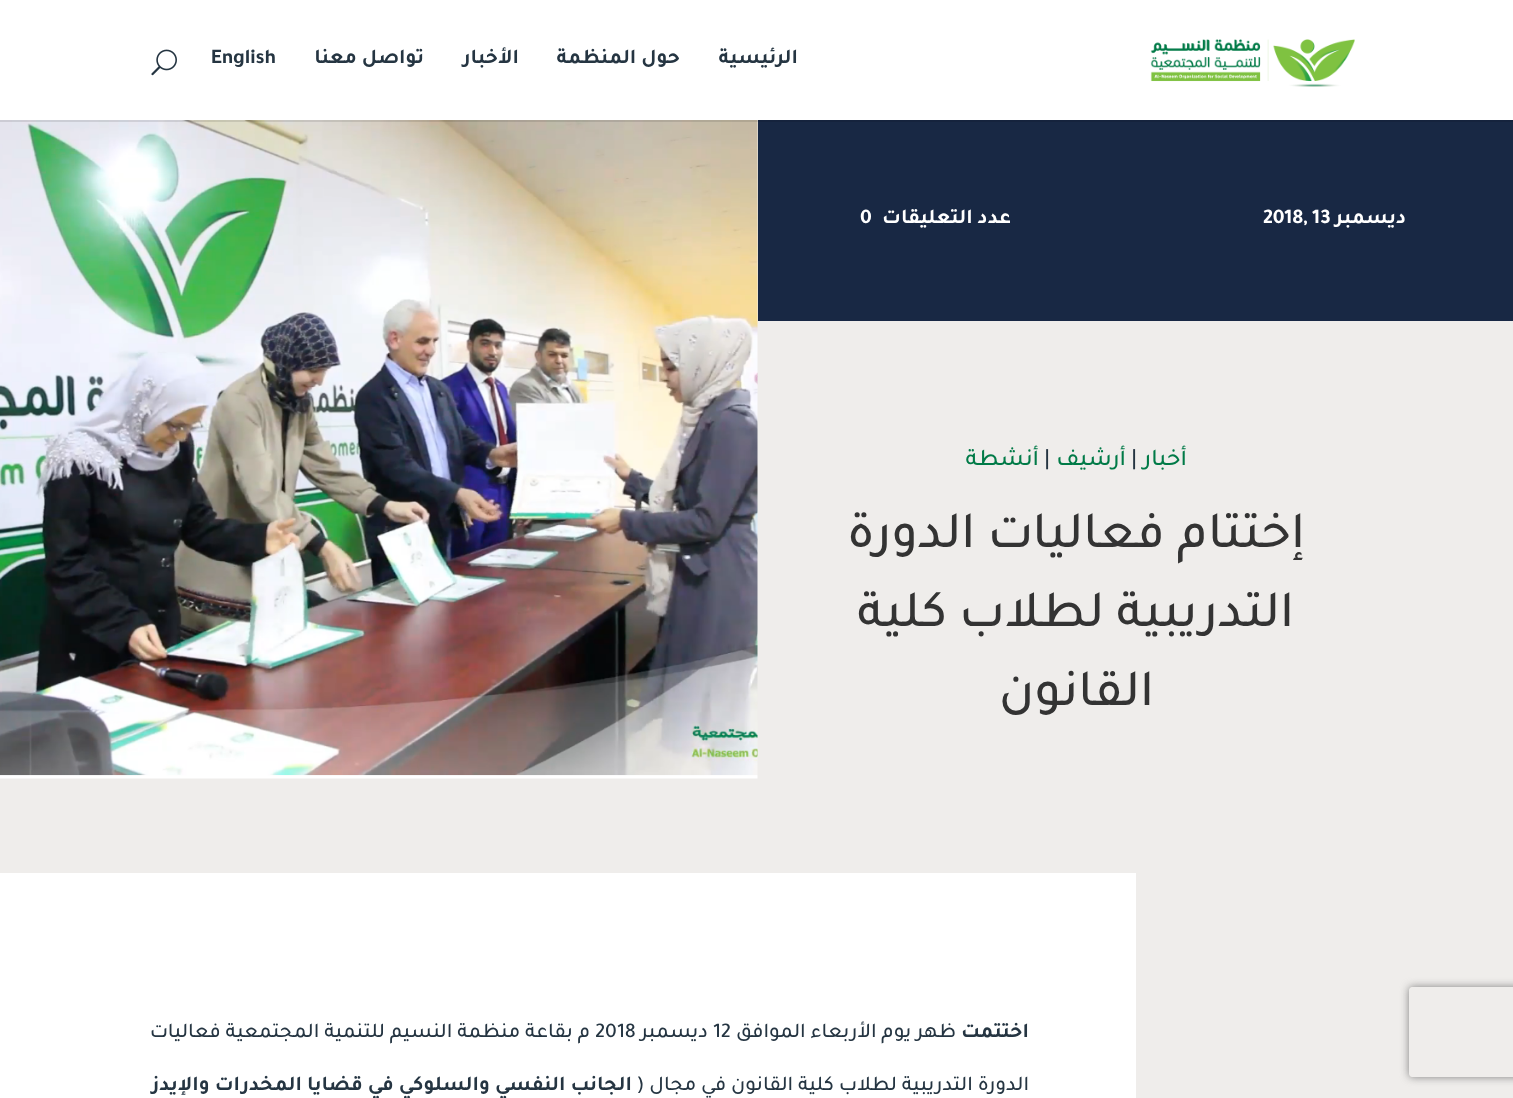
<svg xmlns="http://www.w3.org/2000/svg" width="1513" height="1098">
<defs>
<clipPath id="clip1"><path d="M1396 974h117v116h-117zm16 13h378c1.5 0 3 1.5 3 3v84c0 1.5-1.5 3-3 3h-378c-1.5 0-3-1.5-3-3v-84c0-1.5 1.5-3 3-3z" clip-rule="evenodd"/></clipPath>
</defs>
<rect width="100%" height="100%" fill="#fff"/>
<rect x="1136" y="873" width="377" height="225" fill="#efedeb"/>
<g clip-path="url(#clip1)">
<rect x="1409" y="987" width="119" height="90" rx="3" fill="#808080" filter="blur(4px)"/>
</g>
<rect y="120" width="1513" height="753" fill="#efedeb"/>
<rect x="758" y="120" width="755" height="201" fill="#182844"/>
<image x="0" y="120" width="758" height="659" href="media/3.png"/>
<path d="M0 120v2h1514v-120v118z" fill="#0000001a"/>
<image x="1150" y="39" width="205" height="48" href="media/1.png"/>
<text x="798" y="63" style="font-family:Tajawal;font-size:21px;font-weight:bold;direction:rtl;fill:#253542">الرئيسية</text>
<text x="680" y="63" style="font-family:Tajawal;font-size:21px;font-weight:bold;direction:rtl;fill:#253542">حول المنظمة</text>
<text x="519" y="63" style="font-family:Tajawal;font-size:21px;font-weight:bold;direction:rtl;fill:#253542">الأخبار</text>
<text x="424" y="63" style="font-family:Tajawal;font-size:21px;font-weight:bold;direction:rtl;fill:#253542">تواصل معنا</text>
<text x="211" y="63" style="font-family:Tajawal;font-size:21px;font-weight:bold;fill:#253542">English</text>
<image x="151" y="49" width="26" height="27" href="media/2.png"/>
<text x="1406" y="223" style="font-family:Tajawal;font-size:21px;font-weight:bold;direction:rtl;fill:#fff">ديسمبر</text>
<text x="1263" y="223" style="font-family:Tajawal;font-size:21px;font-weight:bold;fill:#fff">2018, 13</text>
<text x="1011" y="223" style="font-family:Tajawal;font-size:21px;font-weight:bold;direction:rtl;fill:#fff">عدد التعليقات</text>
<text x="860" y="223" style="font-family:Tajawal;font-size:21px;font-weight:bold;fill:#fff">0</text>
<text x="1187" y="465" style="font-family:Tajawal;font-size:24px;font-weight:500;direction:rtl;fill:#007a47">أخبار</text>
<text x="1131" y="465" style="font-family:Tajawal;font-size:24px;font-weight:500;fill:#253542">|</text>
<text x="1126" y="465" style="font-family:Tajawal;font-size:24px;font-weight:500;direction:rtl;fill:#007a47">أرشيف</text>
<text x="1044" y="465" style="font-family:Tajawal;font-size:24px;font-weight:500;fill:#253542">|</text>
<text x="1039" y="465" style="font-family:Tajawal;font-size:24px;font-weight:500;direction:rtl;fill:#007a47">أنشطة</text>
<text x="1305" y="547" style="font-family:Tajawal;font-size:52.5px;font-weight:500;direction:rtl;fill:#333">إختتام فعاليات الدورة</text>
<text x="1294" y="626" style="font-family:Tajawal;font-size:52.5px;font-weight:500;direction:rtl;fill:#333">التدريبية لطلاب كلية</text>
<text x="1154" y="705" style="font-family:Tajawal;font-size:52.5px;font-weight:500;direction:rtl;fill:#333">القانون</text>
<text x="1029" y="1037" style="font-family:Tajawal;font-size:21px;font-weight:bold;direction:rtl;fill:#253542">اختتمت</text>
<text x="956" y="1037" style="font-family:Tajawal;font-size:21px;font-weight:500;direction:rtl;fill:#253542">ظهر يوم الأربعاء الموافق</text>
<text x="713" y="1037" style="font-family:Tajawal;font-size:21px;font-weight:500;fill:#253542">12</text>
<text x="708" y="1037" style="font-family:Tajawal;font-size:21px;font-weight:500;direction:rtl;fill:#253542">ديسمبر</text>
<text x="595" y="1037" style="font-family:Tajawal;font-size:21px;font-weight:500;fill:#253542">2018</text>
<text x="590" y="1037" style="font-family:Tajawal;font-size:21px;font-weight:500;direction:rtl;fill:#253542">م بقاعة منظمة النسيم للتنمية المجتمعية فعاليات</text>
<text x="1029" y="1090" style="font-family:Tajawal;font-size:21px;font-weight:500;direction:rtl;fill:#253542">الدورة التدريبية لطلاب كلية القانون في مجال (</text>
<text x="632" y="1090" style="font-family:Tajawal;font-size:21px;font-weight:bold;direction:rtl;fill:#253542">الجانب النفسي والسلوكي في قضايا المخدرات والإيدز</text>
</svg>
